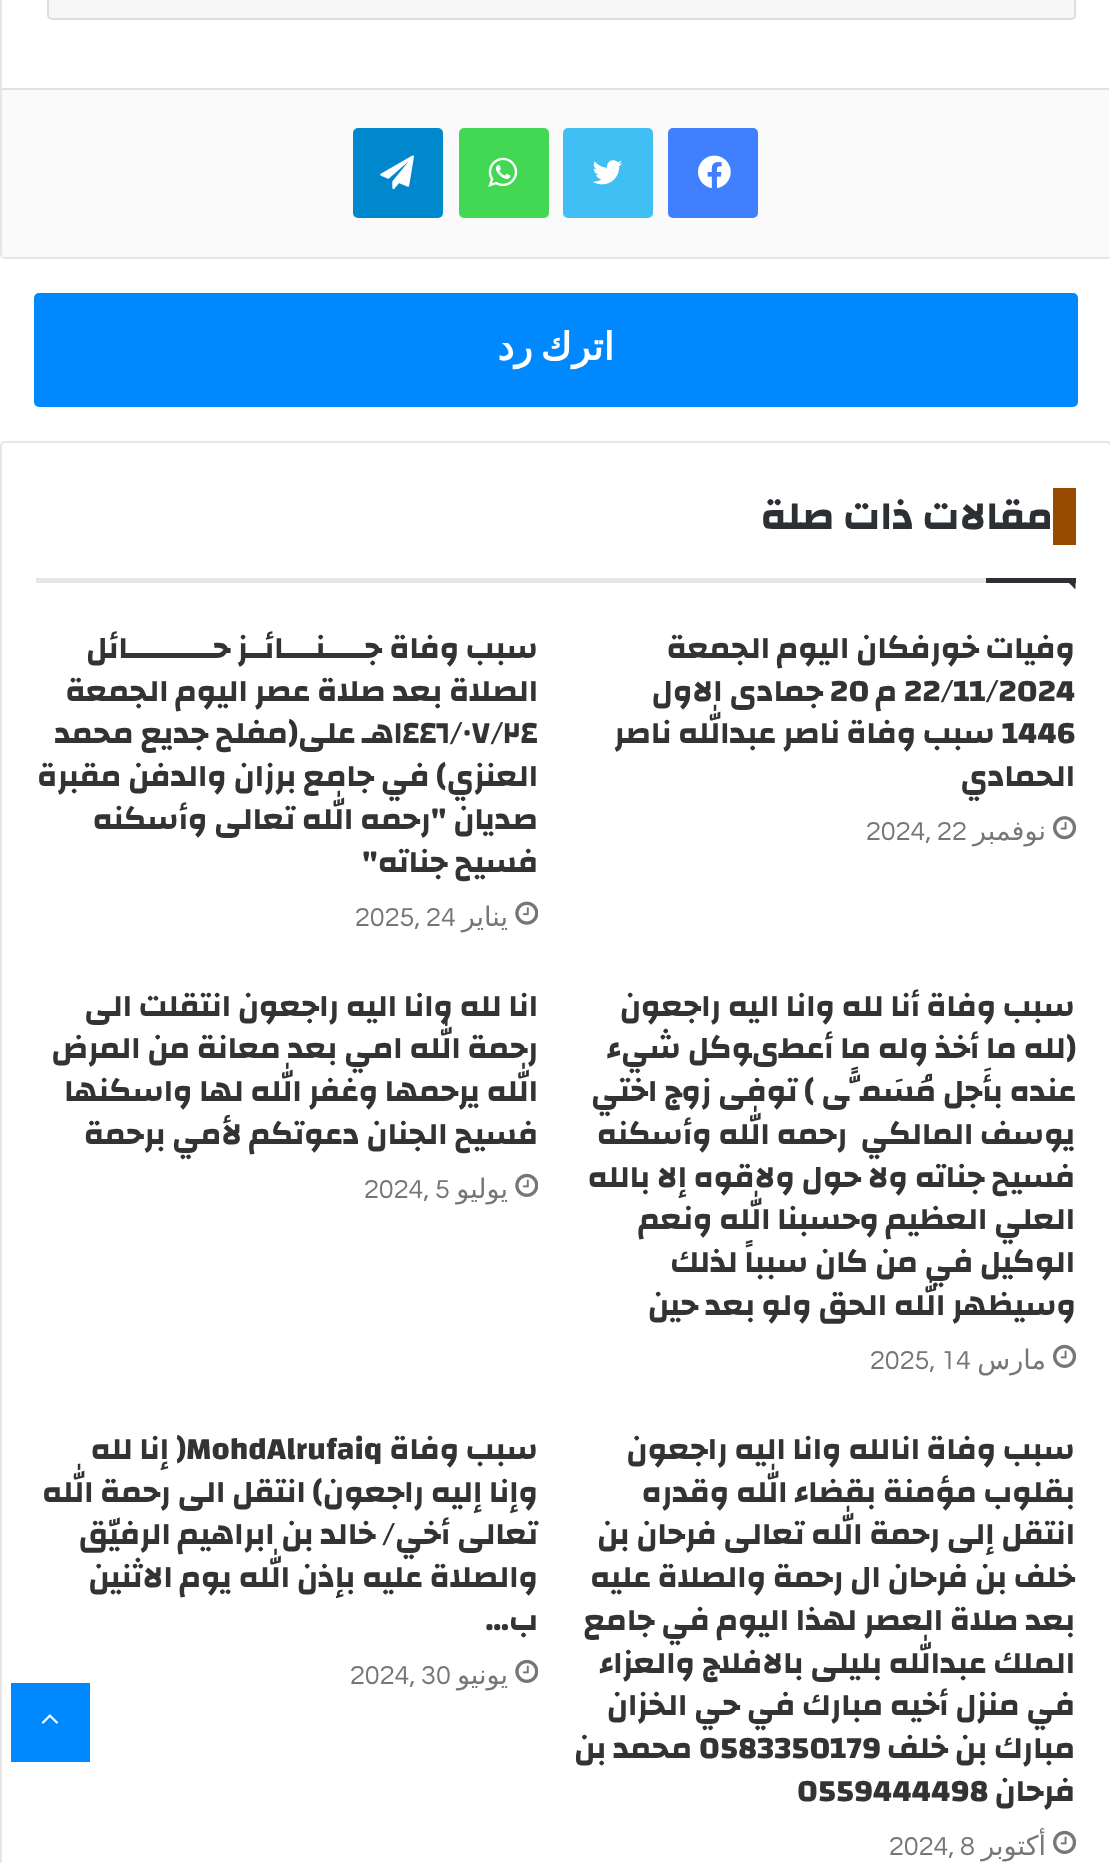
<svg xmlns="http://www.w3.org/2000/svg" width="1110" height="1863">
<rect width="100%" height="100%" fill="#fff"/>
<rect x="1" y="-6" width="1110" height="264" rx="4" fill="none" stroke="#e6e6e6" stroke-width="2"/>
<rect x="47" y="-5" width="1029" height="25" rx="5" fill="#f7f7f7"/>
<rect x="48" y="-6" width="1027" height="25" rx="4" fill="none" stroke="#0000001a" stroke-width="2"/>
<rect x="2" y="90" width="1107" height="167" fill="#fafafa"/>
<rect x="2" y="88" width="1107" height="2" fill="#e1e1e1"/>
<rect x="668" y="128" width="90" height="90" rx="5" fill="#4080ff"/>
<image x="698" y="155" width="33" height="34" href="media/1.png"/>
<rect x="563" y="128" width="90" height="90" rx="5" fill="#40bff5"/>
<image x="592" y="160" width="31" height="25" href="media/2.png"/>
<rect x="459" y="128" width="90" height="90" rx="5" fill="#43d854"/>
<image x="488" y="157" width="30" height="30" href="media/3.png"/>
<rect x="353" y="128" width="90" height="90" rx="5" fill="#08c"/>
<image x="380" y="155" width="34" height="35" href="media/4.png"/>
<rect x="34" y="293" width="1044" height="114" rx="5" fill="#08f"/>
<text x="614" y="360" word-spacing="-4" style="font-family:DejaVu Sans;font-size:38px;font-weight:bold;direction:rtl;fill:#fff">اترك رد</text>
<rect x="1" y="442" width="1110" height="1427" rx="4" fill="none" stroke="#e6e6e6" stroke-width="2"/>
<rect x="36" y="578" width="950" height="5" fill="#e6e6e6"/>
<rect x="1053" y="488" width="23" height="57" fill="#964b00"/>
<text x="1053" y="529" style="font-family:Changa;font-size:40.5px;font-weight:bold;direction:rtl;fill:#2c2f34">مقالات ذات صلة</text>
<path d="M1064 578h11.5v11.5z" fill="#2c2f34"/>
<rect x="986" y="578" width="90" height="5" fill="#2c2f34"/>
<text x="1075" y="658" style="font-family:Changa;font-size:31.5px;font-weight:bold;direction:rtl;fill:#333">وفيات</text>
<text x="979" y="658" style="font-family:Changa;font-size:31.5px;font-weight:bold;direction:rtl;fill:#333">خورفكان اليوم</text>
<text x="770" y="658" style="font-family:Changa;font-size:31.5px;font-weight:bold;direction:rtl;fill:#333">الجمعة</text>
<text x="904" y="701" style="font-family:Changa;font-size:31.5px;font-weight:bold;fill:#333">22/11/2024</text>
<text x="897" y="701" style="font-family:Changa;font-size:31.5px;font-weight:bold;direction:rtl;fill:#333">م</text>
<text x="830" y="701" style="font-family:Changa;font-size:31.5px;font-weight:bold;fill:#333">20</text>
<text x="823" y="701" style="font-family:Changa;font-size:31.5px;font-weight:bold;direction:rtl;fill:#333">جمادى الاول</text>
<text x="1002" y="743" style="font-family:Changa;font-size:31.5px;font-weight:bold;fill:#333">1446</text>
<text x="995" y="743" style="font-family:Changa;font-size:31.5px;font-weight:bold;direction:rtl;fill:#333">سبب وفاة</text>
<text x="840" y="743" style="font-family:Changa;font-size:31.5px;font-weight:bold;direction:rtl;fill:#333">ناصر عبدالله ناصر</text>
<text x="1075" y="786" style="font-family:Changa;font-size:31.5px;font-weight:bold;direction:rtl;fill:#333">الحمادي</text>
<image x="1053" y="816" width="23" height="24" href="media/5.png"/>
<text x="1046" y="840" style="font-family:DejaVu Sans;font-size:27px;direction:rtl;fill:#767676">نوفمبر</text>
<text x="866" y="840" style="font-family:Questrial;font-size:27px;fill:#767676">2024, 22</text>
<text x="538" y="658" style="font-family:Changa;font-size:31.5px;font-weight:bold;direction:rtl;fill:#333">سبب وفاة</text>
<text x="382" y="658" style="font-family:Changa;font-size:31.5px;font-weight:bold;direction:rtl;fill:#333">جـــــنــــائــز حـــــــــــائل</text>
<text x="538" y="701" style="font-family:Changa;font-size:31.5px;font-weight:bold;direction:rtl;fill:#333">الصلاة بعد صلاة عصر اليوم الجمعة</text>
<text x="394" y="743" style="font-family:Changa;font-size:31.5px;font-weight:bold;fill:#333">١٤٤٦/٠٧/٢٤</text>
<text x="394" y="743" style="font-family:Changa;font-size:31.5px;font-weight:bold;direction:rtl;fill:#333">هـ على(مفلح جديع محمد</text>
<text x="538" y="786" style="font-family:Changa;font-size:31.5px;font-weight:bold;direction:rtl;fill:#333">العنزي) في جامع برزان والدفن مقبرة</text>
<text x="538" y="829" style="font-family:Changa;font-size:31.5px;font-weight:bold;direction:rtl;fill:#333">صديان "رحمه الله تعالى وأسكنه</text>
<text x="538" y="872" style="font-family:Changa;font-size:31.5px;font-weight:bold;direction:rtl;fill:#333">فسيح جناته"</text>
<image x="515" y="901" width="23" height="24" href="media/6.png"/>
<text x="508" y="926" style="font-family:DejaVu Sans;font-size:27px;direction:rtl;fill:#767676">يناير</text>
<text x="355" y="926" style="font-family:Questrial;font-size:27px;fill:#767676">2025, 24</text>
<text x="1075" y="1016" style="font-family:Changa;font-size:31.5px;font-weight:bold;direction:rtl;fill:#333">سبب وفاة</text>
<text x="920" y="1016" style="font-family:Changa;font-size:31.5px;font-weight:bold;direction:rtl;fill:#333">أنا لله وانا اليه راجعون</text>
<text x="1076" y="1058" style="font-family:Changa;font-size:31.5px;font-weight:bold;direction:rtl;fill:#333">(لله ما أخذ وله ما أعطىوكل شيء</text>
<text x="1076" y="1101" style="font-family:Changa;font-size:31.5px;font-weight:bold;direction:rtl;fill:#333">عنده بأَجل مُسَمًّى ) توفى زوج اختي</text>
<text x="1075" y="1144" style="font-family:Changa;font-size:31.5px;font-weight:bold;direction:rtl;fill:#333">يوسف المالكي ‍ رحمه الله وأسكنه</text>
<text x="1075" y="1187" style="font-family:Changa;font-size:31.5px;font-weight:bold;direction:rtl;fill:#333">فسيح جناته ولا حول ولاقوه إلا بالله</text>
<text x="1075" y="1229" style="font-family:Changa;font-size:31.5px;font-weight:bold;direction:rtl;fill:#333">العلي العظيم وحسبنا الله ونعم</text>
<text x="1075" y="1272" style="font-family:Changa;font-size:31.5px;font-weight:bold;direction:rtl;fill:#333">الوكيل في من كان سبباً لذلك</text>
<text x="1076" y="1315" style="font-family:Changa;font-size:31.5px;font-weight:bold;direction:rtl;fill:#333">وسيظهر الله الحق ولو بعد حين</text>
<image x="1053" y="1344" width="23" height="24" href="media/7.png"/>
<text x="1046" y="1369" style="font-family:DejaVu Sans;font-size:27px;direction:rtl;fill:#767676">مارس</text>
<text x="870" y="1369" style="font-family:Questrial;font-size:27px;fill:#767676">2025, 14</text>
<text x="538" y="1016" style="font-family:Changa;font-size:31.5px;font-weight:bold;direction:rtl;fill:#333">انا لله وانا اليه راجعون انتقلت الى</text>
<text x="538" y="1058" style="font-family:Changa;font-size:31.5px;font-weight:bold;direction:rtl;fill:#333">رحمة الله امي بعد معانة من المرض</text>
<text x="538" y="1101" style="font-family:Changa;font-size:31.5px;font-weight:bold;direction:rtl;fill:#333">الله يرحمها وغفر الله لها واسكنها</text>
<text x="538" y="1144" style="font-family:Changa;font-size:31.5px;font-weight:bold;direction:rtl;fill:#333">فسيح الجنان دعوتكم لأمي برحمة</text>
<image x="515" y="1173" width="23" height="24" href="media/8.png"/>
<text x="508" y="1198" style="font-family:DejaVu Sans;font-size:27px;direction:rtl;fill:#767676">يوليو</text>
<text x="364" y="1198" style="font-family:Questrial;font-size:27px;fill:#767676">2024, 5</text>
<text x="1075" y="1459" style="font-family:Changa;font-size:31.5px;font-weight:bold;direction:rtl;fill:#333">سبب وفاة</text>
<text x="920" y="1459" style="font-family:Changa;font-size:31.5px;font-weight:bold;direction:rtl;fill:#333">انالله وانا اليه راجعون</text>
<text x="1075" y="1502" style="font-family:Changa;font-size:31.5px;font-weight:bold;direction:rtl;fill:#333">بقلوب مؤمنة بقضاء الله وقدره</text>
<text x="1075" y="1544" style="font-family:Changa;font-size:31.5px;font-weight:bold;direction:rtl;fill:#333">انتقل إلى رحمة الله تعالى فرحان بن</text>
<text x="1075" y="1587" style="font-family:Changa;font-size:31.5px;font-weight:bold;direction:rtl;fill:#333">خلف بن فرحان ال رحمة والصلاة عليه</text>
<text x="1075" y="1630" style="font-family:Changa;font-size:31.5px;font-weight:bold;direction:rtl;fill:#333">بعد صلاة العصر لهذا اليوم في جامع</text>
<text x="1075" y="1673" style="font-family:Changa;font-size:31.5px;font-weight:bold;direction:rtl;fill:#333">الملك عبدالله بليلى بالافلاج والعزاء</text>
<text x="1075" y="1715" style="font-family:Changa;font-size:31.5px;font-weight:bold;direction:rtl;fill:#333">في منزل أخيه مبارك في حي الخزان</text>
<text x="1075" y="1758" style="font-family:Changa;font-size:31.5px;font-weight:bold;direction:rtl;fill:#333">مبارك بن خلف</text>
<text x="699" y="1758" style="font-family:Changa;font-size:31.5px;font-weight:bold;fill:#333">0583350179</text>
<text x="692" y="1758" style="font-family:Changa;font-size:31.5px;font-weight:bold;direction:rtl;fill:#333">محمد بن</text>
<text x="1075" y="1801" style="font-family:Changa;font-size:31.5px;font-weight:bold;direction:rtl;fill:#333">فرحان</text>
<text x="797" y="1801" style="font-family:Changa;font-size:31.5px;font-weight:bold;fill:#333">0559444498</text>
<image x="1053" y="1830" width="23" height="24" href="media/7.png"/>
<text x="1046" y="1855" style="font-family:DejaVu Sans;font-size:27px;direction:rtl;fill:#767676">أكتوبر</text>
<text x="889" y="1855" style="font-family:Questrial;font-size:27px;fill:#767676">2024, 8</text>
<text x="538" y="1459" style="font-family:Changa;font-size:31.5px;font-weight:bold;direction:rtl;fill:#333">سبب وفاة</text>
<text x="186" y="1459" style="font-family:Changa;font-size:31.5px;font-weight:bold;fill:#333">MohdAlrufaiq</text>
<text x="186" y="1459" style="font-family:Changa;font-size:31.5px;font-weight:bold;direction:rtl;fill:#333">( إنا لله</text>
<text x="538" y="1502" style="font-family:Changa;font-size:31.5px;font-weight:bold;direction:rtl;fill:#333">وإنا إليه راجعون) انتقل الى رحمة الله</text>
<text x="538" y="1544" style="font-family:Changa;font-size:31.5px;font-weight:bold;direction:rtl;fill:#333">تعالى أخي/ خالد بن ابراهيم الرفيّق</text>
<text x="538" y="1587" style="font-family:Changa;font-size:31.5px;font-weight:bold;direction:rtl;fill:#333">والصلاة عليه بإذن الله يوم الاثنين</text>
<text x="538" y="1630" style="font-family:Changa;font-size:31.5px;font-weight:bold;direction:rtl;fill:#333">ب…</text>
<image x="515" y="1659" width="23" height="24" href="media/8.png"/>
<text x="508" y="1684" style="font-family:DejaVu Sans;font-size:27px;direction:rtl;fill:#767676">يونيو</text>
<text x="350" y="1684" style="font-family:Questrial;font-size:27px;fill:#767676">2024, 30</text>
<rect x="11" y="1683" width="79" height="79" fill="#08f"/>
<image x="41" y="1714" width="17" height="10" href="media/9.png"/>
</svg>
